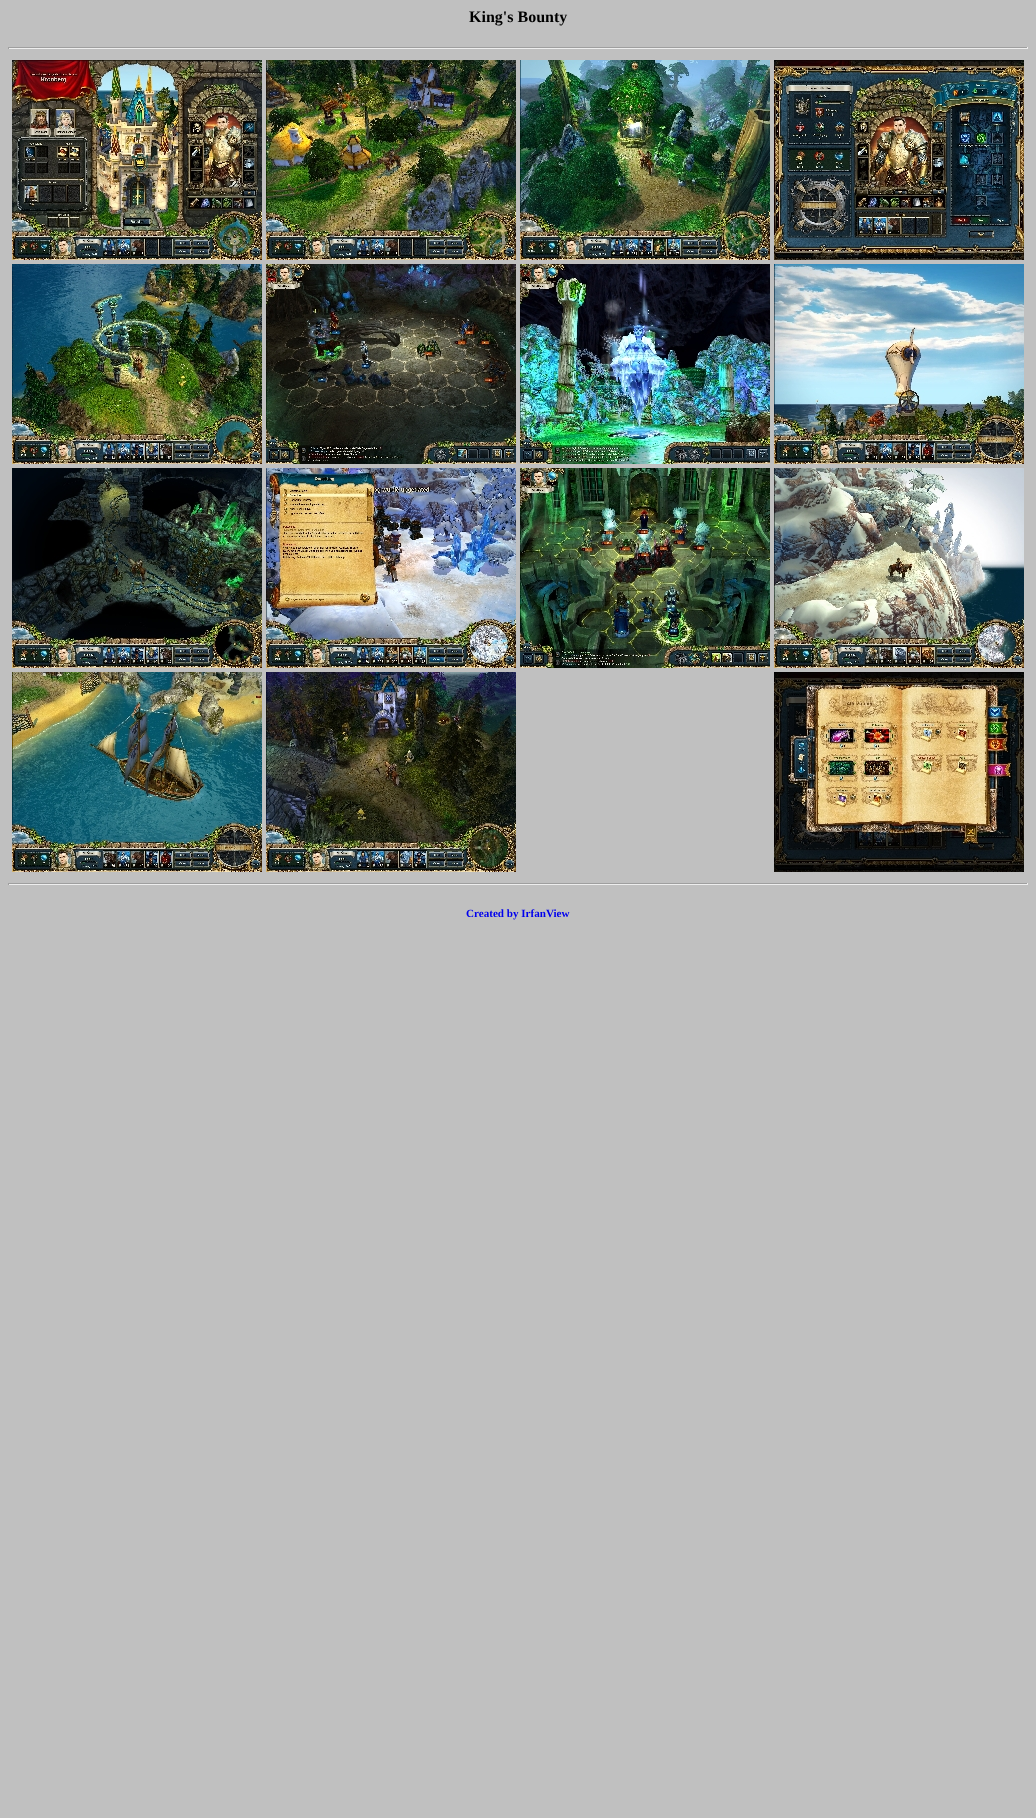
<svg xmlns="http://www.w3.org/2000/svg" width="1036" height="1818">
<rect width="100%" height="100%" fill="#c0c0c0"/>
<text x="469" y="22" style="font-family:Liberation Serif;font-size:16px;font-weight:bold;fill:#000">King's Bounty</text>
<rect x="8" y="47" width="1020" height="1" fill="#9f9f9f"/>
<rect x="1027" y="47" width="1" height="2" fill="#eee"/>
<rect x="8" y="48" width="1020" height="1" fill="#eee"/>
<rect x="8" y="47" width="1" height="2" fill="#9f9f9f"/>
<image x="12" y="60" width="250" height="200" href="media/1.png"/>
<image x="266" y="60" width="250" height="200" href="media/2.png"/>
<image x="520" y="60" width="250" height="200" href="media/3.png"/>
<image x="774" y="60" width="250" height="200" href="media/4.png"/>
<image x="12" y="264" width="250" height="200" href="media/5.png"/>
<image x="266" y="264" width="250" height="200" href="media/6.png"/>
<image x="520" y="264" width="250" height="200" href="media/7.png"/>
<image x="774" y="264" width="250" height="200" href="media/8.png"/>
<image x="12" y="468" width="250" height="200" href="media/9.png"/>
<image x="266" y="468" width="250" height="200" href="media/10.png"/>
<image x="520" y="468" width="250" height="200" href="media/11.png"/>
<image x="774" y="468" width="250" height="200" href="media/12.png"/>
<image x="12" y="672" width="250" height="200" href="media/13.png"/>
<image x="266" y="672" width="250" height="200" href="media/14.png"/>
<image x="774" y="672" width="250" height="200" href="media/15.png"/>
<rect x="8" y="883" width="1020" height="1" fill="#9f9f9f"/>
<rect x="1027" y="883" width="1" height="2" fill="#eee"/>
<rect x="8" y="884" width="1020" height="1" fill="#eee"/>
<rect x="8" y="883" width="1" height="2" fill="#9f9f9f"/>
<text x="466" y="917" style="font-family:Liberation Serif;font-size:11.1px;font-weight:bold;fill:#00e">Created by IrfanView</text>
</svg>
